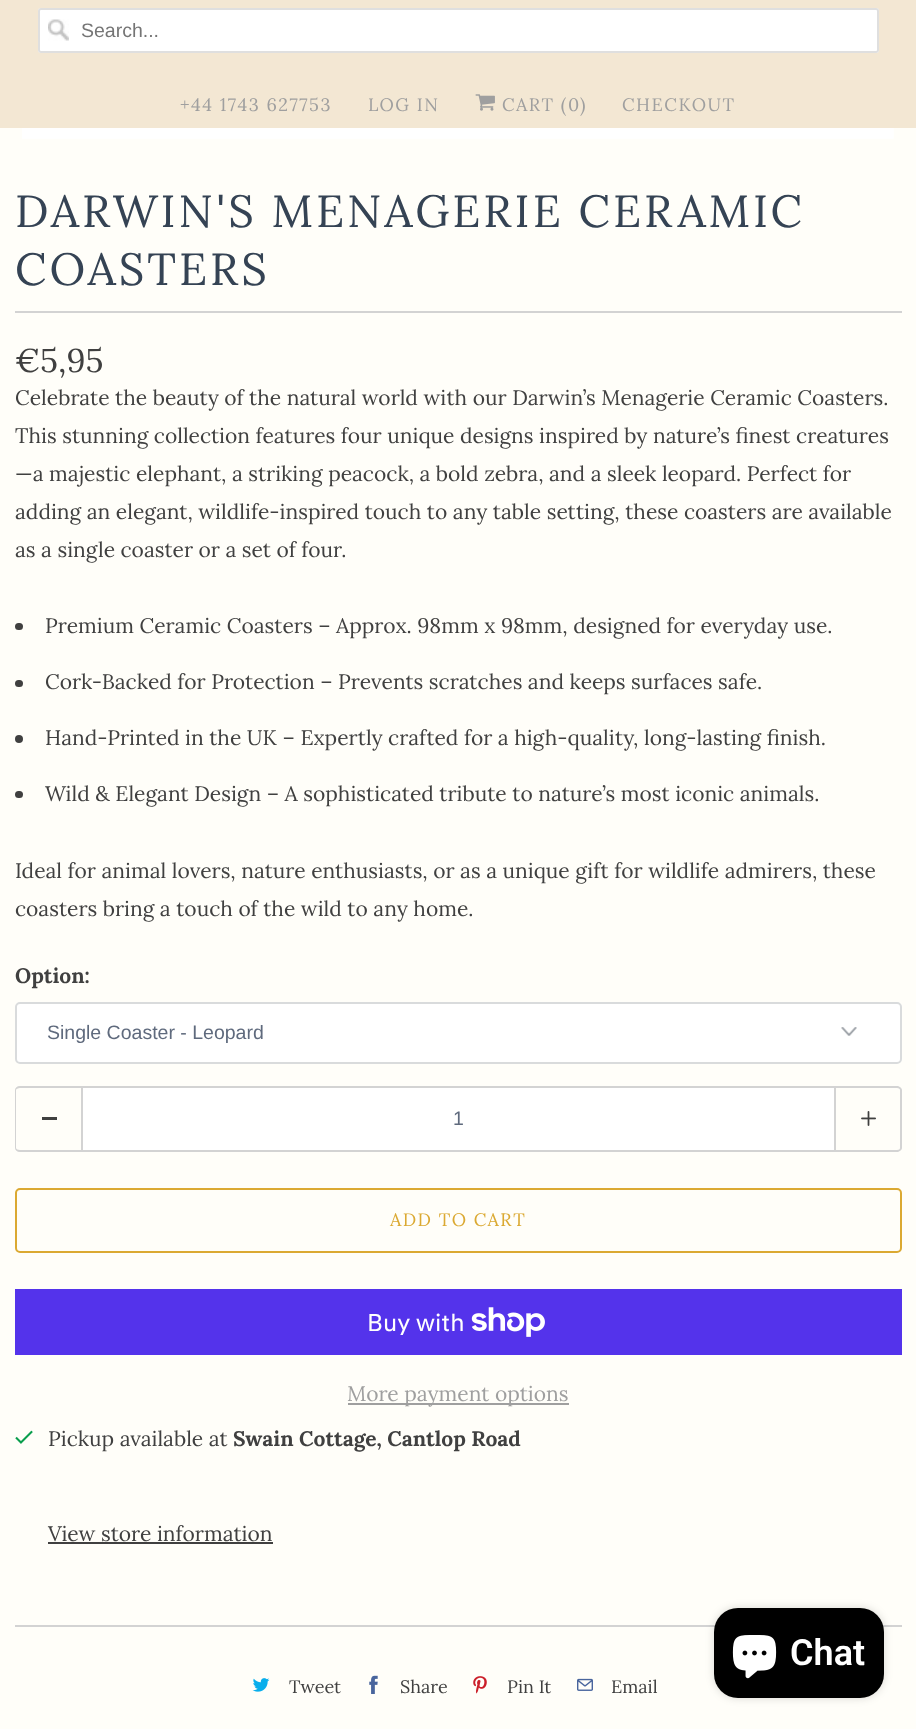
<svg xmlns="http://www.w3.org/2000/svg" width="916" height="1729">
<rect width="100%" height="100%" fill="#fffef9"/>
<rect width="916" height="128" fill="#f3e7d3"/>
<rect x="38" y="8" width="841" height="45" rx="3" fill="#fff"/>
<image x="48" y="19" width="21" height="22" href="media/1.png"/>
<rect x="39" y="9" width="839" height="43" rx="2" fill="none" stroke="#dfdfdf" stroke-width="2"/>
<text x="81" y="37" style="font-family:Liberation Sans;font-size:19.5px;fill:#757575">Search...</text>
<text x="180" y="111" style="font-family:Lora;font-size:18px;letter-spacing:1.5px;fill:#9f9f9f">+44 1743 627753</text>
<text x="368" y="111" style="font-family:Lora;font-size:18px;letter-spacing:1.5px;fill:#9f9f9f">LOG IN</text>
<image x="475" y="94" width="20" height="17" href="media/2.png"/>
<text x="502" y="111" style="font-family:Lora;font-size:18px;letter-spacing:1.5px;fill:#9f9f9f">CART (</text>
<text x="568" y="111" style="font-family:Lora;font-size:18px;letter-spacing:1.5px;fill:#9f9f9f">0</text>
<text x="580" y="111" style="font-family:Lora;font-size:18px;letter-spacing:1.5px;fill:#9f9f9f">)</text>
<text x="622" y="111" style="font-family:Lora;font-size:18px;letter-spacing:1.5px;fill:#9f9f9f">CHECKOUT</text>
<image x="22" y="128" width="872" height="11" href="media/3.png"/>
<rect x="15" y="311" width="887" height="2" fill="#d3d3d3"/>
<text x="15" y="227" style="font-family:Lora;font-size:45px;letter-spacing:3px;fill:#354354">DARWIN'S MENAGERIE CERAMIC</text>
<text x="15" y="285" style="font-family:Lora;font-size:45px;letter-spacing:3px;fill:#354354">COASTERS</text>
<text x="15" y="372" style="font-family:Lora;font-size:33px;fill:#404040">€5,95</text>
<text x="15" y="405" style="font-family:Lora;font-size:21px;fill:#404040">Celebrate the beauty of the natural world with our Darwin’s Menagerie Ceramic Coasters.</text>
<text x="15" y="443" style="font-family:Lora;font-size:21px;fill:#404040">This stunning collection features four unique designs inspired by nature’s finest creatures</text>
<text x="15" y="481" style="font-family:Lora;font-size:21px;fill:#404040">—a majestic elephant, a striking peacock, a bold zebra, and a sleek leopard. Perfect for</text>
<text x="15" y="519" style="font-family:Lora;font-size:21px;fill:#404040">adding an elegant, wildlife-inspired touch to any table setting, these coasters are available</text>
<text x="15" y="557" style="font-family:Lora;font-size:21px;fill:#404040">as a single coaster or a set of four.</text>
<rect x="15" y="623" width="8" height="7" rx="3.5" fill="#404040"/>
<text x="45" y="633" style="font-family:Lora;font-size:21px;fill:#404040">Premium Ceramic Coasters – Approx. 98mm x 98mm, designed for everyday use.</text>
<rect x="15" y="680" width="8" height="7" rx="3.5" fill="#404040"/>
<text x="45" y="689" style="font-family:Lora;font-size:21px;fill:#404040">Cork-Backed for Protection – Prevents scratches and keeps surfaces safe.</text>
<circle cx="19" cy="739" r="4" fill="#404040"/>
<text x="45" y="745" style="font-family:Lora;font-size:21px;fill:#404040">Hand-Printed in the UK – Expertly crafted for a high-quality, long-lasting finish.</text>
<rect x="15" y="791" width="8" height="7" rx="3.5" fill="#404040"/>
<text x="45" y="801" style="font-family:Lora;font-size:21px;fill:#404040">Wild &amp; Elegant Design – A sophisticated tribute to nature’s most iconic animals.</text>
<text x="15" y="878" style="font-family:Lora;font-size:21px;fill:#404040">Ideal for animal lovers, nature enthusiasts, or as a unique gift for wildlife admirers, these</text>
<text x="15" y="916" style="font-family:Lora;font-size:21px;fill:#404040">coasters bring a touch of the wild to any home.</text>
<text x="15" y="983" style="font-family:Lora;font-size:21px;font-weight:bold;fill:#404040">Option:</text>
<rect x="15" y="1002" width="887" height="62" rx="5" fill="#fff"/>
<image x="841" y="1027" width="16" height="9" href="media/4.png"/>
<rect x="16" y="1003" width="885" height="60" rx="4" fill="none" stroke="#d9dbdc" stroke-width="2"/>
<text x="47" y="1039" style="font-family:Liberation Sans;font-size:19.5px;fill:#5f6a7d">Single Coaster - Leopard</text>
<path d="M20 1086h61v66h-61c-3 0-5-2-5-4v-58c0-2 2-4 5-4zm0 2h61v62h-61c-2 0-4-1-4-2v-58c0-1 2-2 4-2z" fill="#d3d3d3" fill-rule="evenodd"/>
<rect x="42" y="1117" width="15" height="3" fill="#404040"/>
<rect x="82" y="1087" width="753" height="64" fill="#fff" stroke="#d3d3d3" stroke-width="2"/>
<text x="453" y="1125" style="font-family:Liberation Sans;font-size:19.5px;fill:#5f6a7d">1</text>
<path d="M836 1086h61c2 0 5 2 5 4v58c0 2-3 4-5 4h-61zm0 2h61c2 0 3 1 3 2v58c0 1-1 2-3 2h-61z" fill="#d3d3d3" fill-rule="evenodd"/>
<image x="861" y="1111" width="15" height="15" href="media/5.png"/>
<rect x="16" y="1189" width="885" height="63" rx="4" fill="none" stroke="#dba932" stroke-width="2"/>
<text x="390" y="1226" style="font-family:Lora;font-size:18px;letter-spacing:1.5px;fill:#dba932">ADD TO CART</text>
<rect x="15" y="1289" width="887" height="66" fill="#5433eb"/>
<text x="367" y="1331" style="font-family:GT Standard;font-size:24px;fill:#fff">Buy with</text>
<image x="471" y="1307" width="74" height="30" href="media/6.png"/>
<rect x="348" y="1403" width="221" height="2" fill="#9f9f9f"/>
<text x="347" y="1401" style="font-family:Lora;font-size:21px;fill:#9f9f9f">More payment options</text>
<image x="15" y="1430" width="18" height="14" href="media/7.png"/>
<text x="48" y="1446" style="font-family:Lora;font-size:21px;fill:#404040">Pickup available at</text>
<text x="233" y="1446" style="font-family:Lora;font-size:21px;font-weight:bold;fill:#404040">Swain Cottage, Cantlop Road</text>
<text x="48" y="1541" style="font-family:Lora;font-size:21px;fill:#404040">View store information</text>
<rect x="48" y="1542" width="225" height="2" fill="#404040"/>
<rect x="15" y="1625" width="887" height="2" fill="#d3d3d3"/>
<image x="252" y="1678" width="18" height="14" href="media/8.png"/>
<text x="289" y="1693" style="font-family:Lora;font-size:18px;fill:#404040">Tweet</text>
<image x="369" y="1675" width="9" height="19" href="media/9.png"/>
<text x="400" y="1693" style="font-family:Lora;font-size:18px;fill:#404040">Share</text>
<image x="473" y="1676" width="14" height="18" href="media/10.png"/>
<text x="507" y="1693" style="font-family:Lora;font-size:18px;fill:#404040">Pin It</text>
<image x="577" y="1678" width="16" height="13" href="media/11.png"/>
<text x="611" y="1693" style="font-family:Lora;font-size:18px;fill:#404040">Email</text>
<rect x="714" y="1608" width="170" height="90" rx="24" fill="#00000026" filter="blur(4px)"/>
<rect x="714" y="1608" width="170" height="90" rx="24" fill="#000"/>
<image x="732" y="1635" width="45" height="44" href="media/12.png"/>
<text x="790" y="1665" style="font-family:Roboto;font-size:36px;font-weight:600;fill:#fff">Chat</text>
</svg>
